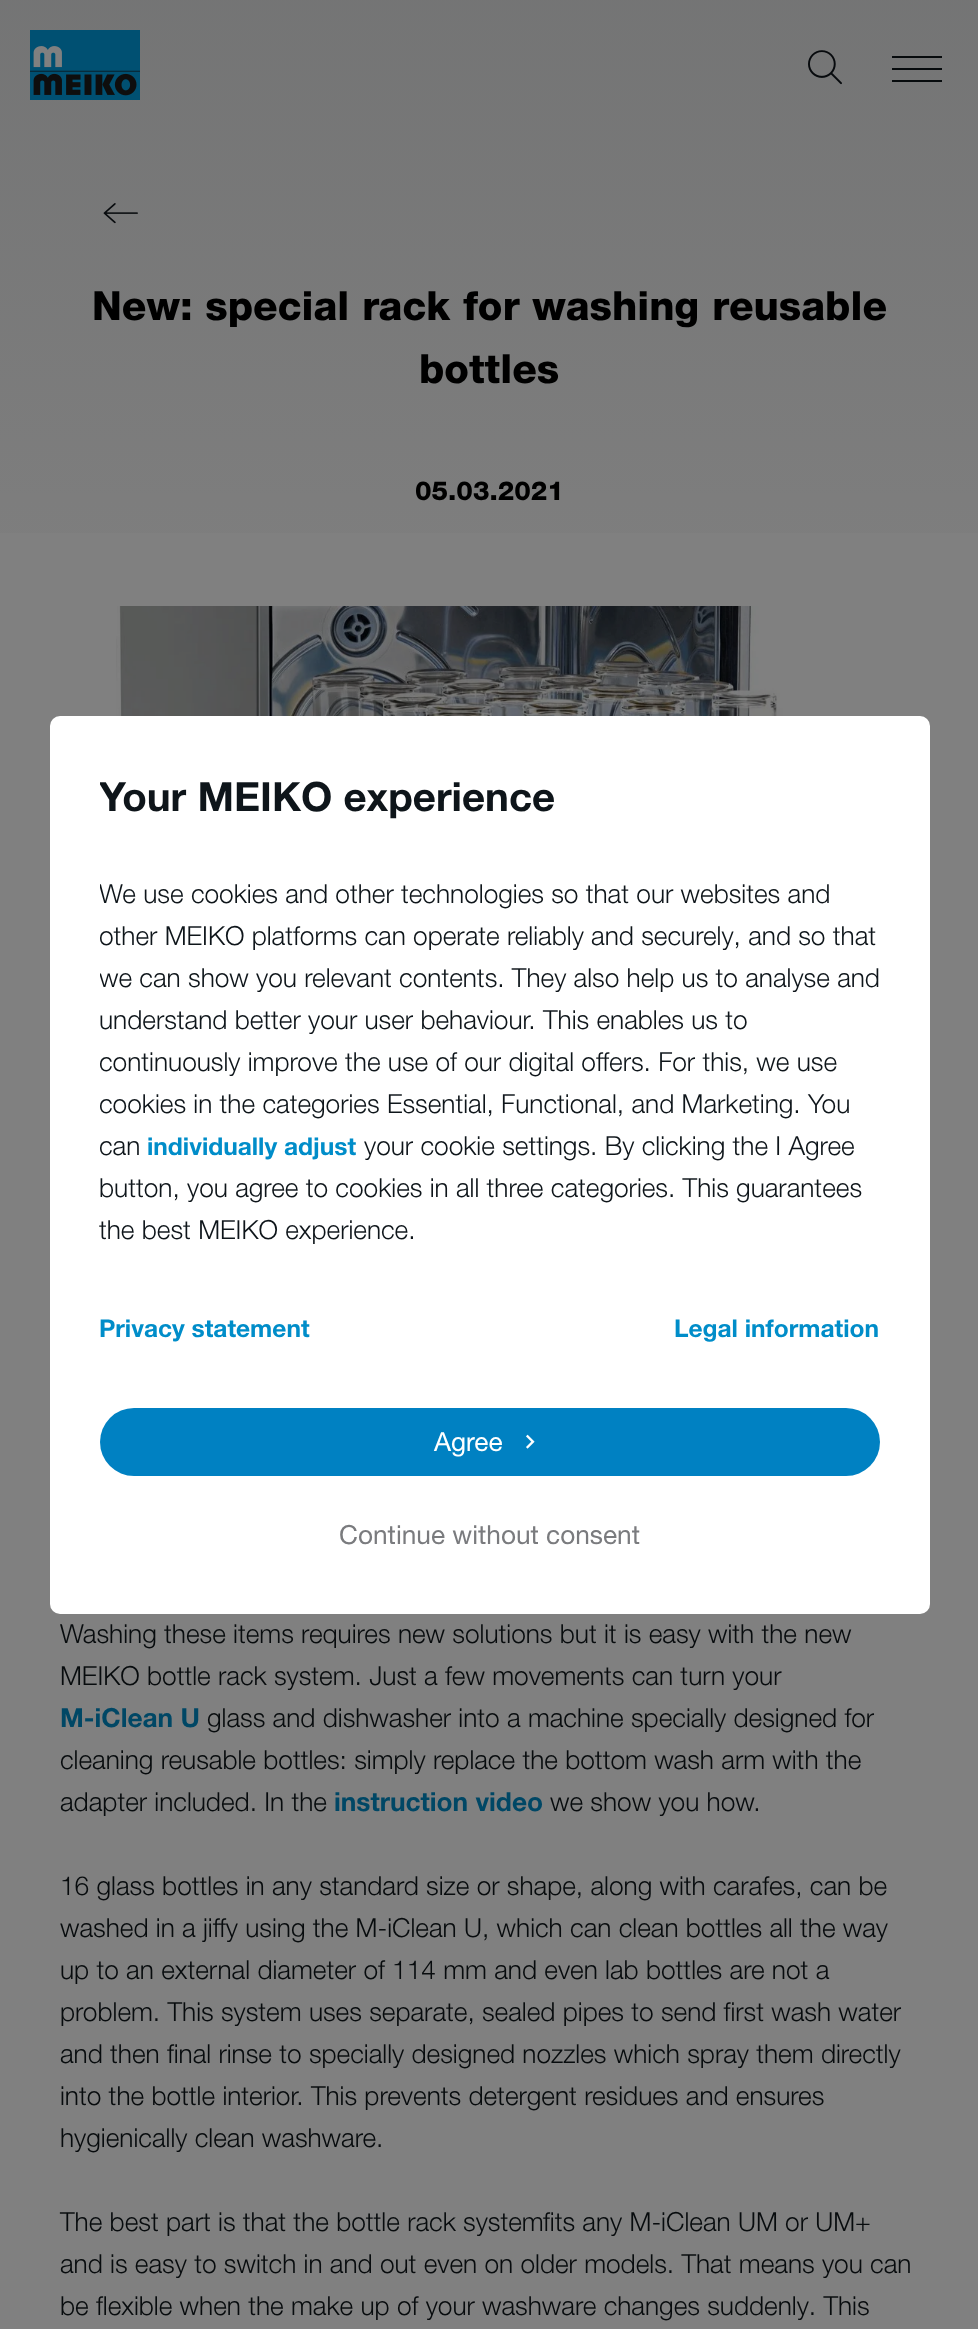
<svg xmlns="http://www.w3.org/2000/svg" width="978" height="2329">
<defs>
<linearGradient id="g1" gradientUnits="userSpaceOnUse" x1="489" y1="680" x2="489" y2="0"><stop offset="0" stop-color="#090e11" stop-opacity="0"/><stop offset="1" stop-color="#090e11" stop-opacity="0.1"/></linearGradient>
<clipPath id="clip1"><rect x="100" y="766" width="780" height="642"/></clipPath>
</defs>
<rect width="100%" height="100%" fill="#808080"/>
<rect width="978" height="533" fill="url(#g1)"/>
<rect x="30" y="30" width="110" height="70" fill="#005072"/>
<image x="30" y="46" width="110" height="50" href="media/1.png"/>
<image x="103" y="203" width="35" height="21" href="media/2.png"/>
<image x="808" y="50" width="34" height="35" href="media/3.png"/>
<rect x="892" y="56" width="50" height="2" fill="#070b0d"/>
<rect x="892" y="68" width="50" height="2" fill="#070b0d"/>
<rect x="892" y="80" width="50" height="2" fill="#070b0d"/>
<text x="92" y="320" style="font-family:'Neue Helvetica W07';font-size:40.25px;font-weight:900;fill:#000">New: special rack for washing reusable</text>
<text x="419" y="383" style="font-family:'Neue Helvetica W07';font-size:40.25px;font-weight:900;fill:#000">bottles</text>
<text x="415" y="500" style="font-family:'Neue Helvetica W07';font-size:26.25px;font-weight:900;fill:#000">05.03.2021</text>
<image x="116" y="606" width="778" height="110" href="media/4.png"/>
<text x="60" y="1643" style="font-family:'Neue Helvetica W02';font-size:26.25px;font-weight:300;fill:#070b0d">Washing these items requires new solutions but it is easy with the new</text>
<text x="60" y="1685" style="font-family:'Neue Helvetica W02';font-size:26.25px;font-weight:300;fill:#070b0d">MEIKO bottle rack system. Just a few movements can turn your</text>
<text x="60" y="1727" style="font-family:'Neue Helvetica W02';font-size:26.25px;font-weight:bold;fill:#004765">M-iClean U</text>
<text x="207" y="1727" style="font-family:'Neue Helvetica W02';font-size:26.25px;font-weight:300;fill:#070b0d">glass and dishwasher into a machine specially designed for</text>
<text x="60" y="1769" style="font-family:'Neue Helvetica W02';font-size:26.25px;font-weight:300;fill:#070b0d">cleaning reusable bottles: simply replace the bottom wash arm with the</text>
<text x="60" y="1811" style="font-family:'Neue Helvetica W02';font-size:26.25px;font-weight:300;fill:#070b0d">adapter included. In the</text>
<text x="334" y="1811" style="font-family:'Neue Helvetica W02';font-size:26.25px;font-weight:bold;fill:#004765">instruction video</text>
<text x="550" y="1811" style="font-family:'Neue Helvetica W02';font-size:26.25px;font-weight:300;fill:#070b0d">we show you how.</text>
<text x="60" y="1895" style="font-family:'Neue Helvetica W02';font-size:26.25px;font-weight:300;fill:#070b0d">16 glass bottles in any standard size or shape, along with carafes, can be</text>
<text x="60" y="1937" style="font-family:'Neue Helvetica W02';font-size:26.25px;font-weight:300;fill:#070b0d">washed in a jiffy using the M-iClean U, which can clean bottles all the way</text>
<text x="60" y="1979" style="font-family:'Neue Helvetica W02';font-size:26.25px;font-weight:300;fill:#070b0d">up to an external diameter of 114 mm and even lab bottles are not a</text>
<text x="60" y="2021" style="font-family:'Neue Helvetica W02';font-size:26.25px;font-weight:300;fill:#070b0d">problem. This system uses separate, sealed pipes to send first wash water</text>
<text x="60" y="2063" style="font-family:'Neue Helvetica W02';font-size:26.25px;font-weight:300;fill:#070b0d">and then final rinse to specially designed nozzles which spray them directly</text>
<text x="60" y="2105" style="font-family:'Neue Helvetica W02';font-size:26.25px;font-weight:300;fill:#070b0d">into the bottle interior. This prevents detergent residues and ensures</text>
<text x="60" y="2147" style="font-family:'Neue Helvetica W02';font-size:26.25px;font-weight:300;fill:#070b0d">hygienically clean washware.</text>
<text x="60" y="2231" style="font-family:'Neue Helvetica W02';font-size:26.25px;font-weight:300;fill:#070b0d">The best part is that the bottle rack system</text>
<text x="543" y="2231" style="font-family:'Neue Helvetica W02';font-size:26.25px;font-weight:300;fill:#070b0d">fits any M-iClean UM or UM+</text>
<text x="60" y="2273" style="font-family:'Neue Helvetica W02';font-size:26.25px;font-weight:300;fill:#070b0d">and is easy to switch in and out even on older models. That means you can</text>
<text x="60" y="2315" style="font-family:'Neue Helvetica W02';font-size:26.25px;font-weight:300;fill:#070b0d">be flexible when the make up of your washware changes suddenly. This</text>
<rect x="50" y="716" width="880" height="898" rx="10" fill="#fff"/>
<g clip-path="url(#clip1)">
<text x="99" y="811" style="font-family:'Neue Helvetica W02';font-size:40.25px;font-weight:bold;fill:#0e151a">Your MEIKO experience</text>
<text x="99" y="903" style="font-family:'Neue Helvetica W02';font-size:26.25px;font-weight:300;fill:#0e151a">We use cookies and other technologies so that our websites and</text>
<text x="99" y="945" style="font-family:'Neue Helvetica W02';font-size:26.25px;font-weight:300;fill:#0e151a">other MEIKO platforms can operate reliably and securely, and so that</text>
<text x="99" y="987" style="font-family:'Neue Helvetica W02';font-size:26.25px;font-weight:300;fill:#0e151a">we can show you relevant contents. They also help us to analyse and</text>
</g>
<text x="99" y="1029" style="font-family:'Neue Helvetica W02';font-size:26.25px;font-weight:300;fill:#0e151a">understand better your user behaviour. This enables us to</text>
<g clip-path="url(#clip1)">
<text x="99" y="1071" style="font-family:'Neue Helvetica W02';font-size:26.25px;font-weight:300;fill:#0e151a">continuously improve the use of our digital offers. For this, we use</text>
<text x="99" y="1113" style="font-family:'Neue Helvetica W02';font-size:26.25px;font-weight:300;fill:#0e151a">cookies in the categories Essential, Functional, and Marketing. You</text>
<text x="99" y="1155" style="font-family:'Neue Helvetica W02';font-size:26.25px;font-weight:300;fill:#0e151a">can</text>
</g>
<text x="147" y="1155" style="font-family:'Neue Helvetica W02';font-size:24.5px;font-weight:bold;fill:#008dc9">individually adjust</text>
<text x="364" y="1155" style="font-family:'Neue Helvetica W02';font-size:26.25px;font-weight:300;fill:#0e151a">your cookie settings. By clicking the I Agree</text>
<text x="99" y="1197" style="font-family:'Neue Helvetica W02';font-size:26.25px;font-weight:300;fill:#0e151a">button, you agree to cookies in all three categories. This guarantees</text>
<text x="99" y="1239" style="font-family:'Neue Helvetica W02';font-size:26.25px;font-weight:300;fill:#0e151a">the best MEIKO experience.</text>
<text x="99" y="1337" style="font-family:'Neue Helvetica W02';font-size:24.5px;font-weight:bold;fill:#008dc9">Privacy statement</text>
<text x="674" y="1337" style="font-family:'Neue Helvetica W02';font-size:24.5px;font-weight:bold;fill:#008dc9">Legal information</text>
<rect x="100" y="1408" width="780" height="68" rx="34" fill="#0081c2"/>
<text x="434" y="1451" style="font-family:'Neue Helvetica W02';font-size:26.25px;fill:#fff">Agree</text>
<image x="526" y="1434" width="9" height="15" href="media/5.png"/>
<text x="339" y="1544" style="font-family:'Neue Helvetica W02';font-size:26.25px;fill:#7a7b7e">Continue without consent</text>
</svg>
